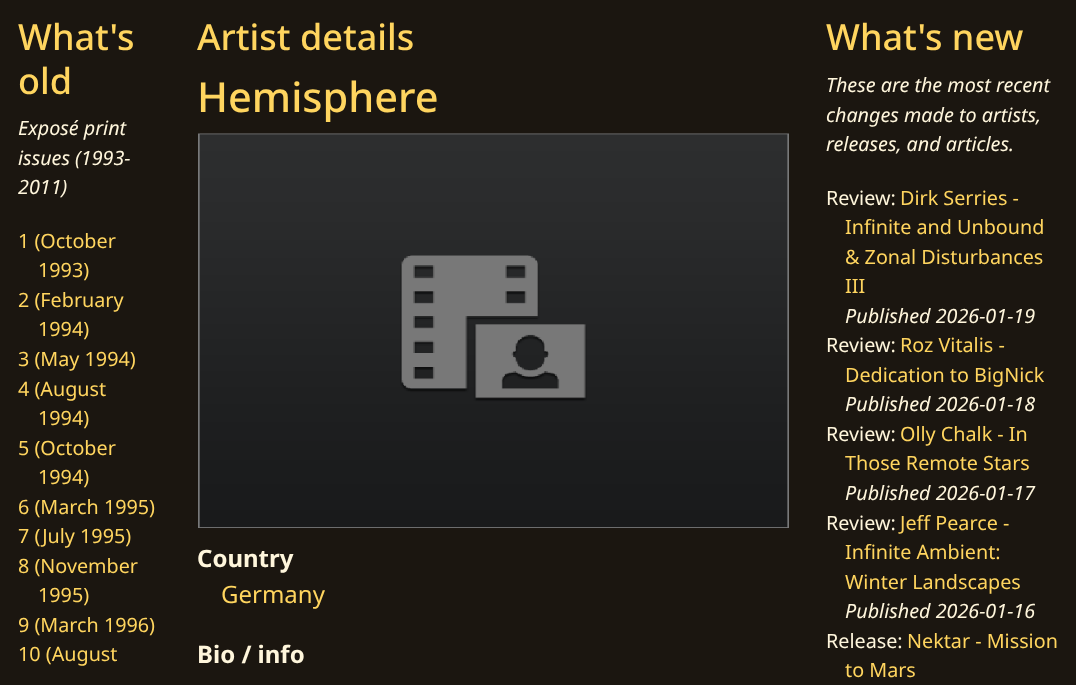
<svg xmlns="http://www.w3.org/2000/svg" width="1076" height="685">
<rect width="100%" height="100%" fill="#1b1610"/>
<text x="18" y="50" style="font-family:Noto Sans;font-size:36px;font-weight:500;fill:#ffd55f">What's</text>
<text x="18" y="94" style="font-family:Noto Sans;font-size:36px;font-weight:500;fill:#ffd55f">old</text>
<text x="18" y="135" style="font-family:Noto Sans;font-size:19.75px;font-style:italic;fill:#fff6dc">Exposé print</text>
<text x="18" y="165" style="font-family:Noto Sans;font-size:19.75px;font-style:italic;fill:#fff6dc">issues (1993-</text>
<text x="18" y="194" style="font-family:Noto Sans;font-size:19.75px;font-style:italic;fill:#fff6dc">2011)</text>
<text x="18" y="248" style="font-family:Noto Sans;font-size:19.75px;fill:#ffd55f">1 (October</text>
<text x="38" y="277" style="font-family:Noto Sans;font-size:19.75px;fill:#ffd55f">1993)</text>
<text x="18" y="307" style="font-family:Noto Sans;font-size:19.75px;fill:#ffd55f">2 (February</text>
<text x="38" y="336" style="font-family:Noto Sans;font-size:19.75px;fill:#ffd55f">1994)</text>
<text x="18" y="366" style="font-family:Noto Sans;font-size:19.75px;fill:#ffd55f">3 (May 1994)</text>
<text x="18" y="396" style="font-family:Noto Sans;font-size:19.75px;fill:#ffd55f">4 (August</text>
<text x="38" y="425" style="font-family:Noto Sans;font-size:19.75px;fill:#ffd55f">1994)</text>
<text x="18" y="455" style="font-family:Noto Sans;font-size:19.75px;fill:#ffd55f">5 (October</text>
<text x="38" y="484" style="font-family:Noto Sans;font-size:19.75px;fill:#ffd55f">1994)</text>
<text x="18" y="514" style="font-family:Noto Sans;font-size:19.75px;fill:#ffd55f">6 (March 1995)</text>
<text x="18" y="543" style="font-family:Noto Sans;font-size:19.75px;fill:#ffd55f">7 (July 1995)</text>
<text x="18" y="573" style="font-family:Noto Sans;font-size:19.75px;fill:#ffd55f">8 (November</text>
<text x="38" y="602" style="font-family:Noto Sans;font-size:19.75px;fill:#ffd55f">1995)</text>
<text x="18" y="632" style="font-family:Noto Sans;font-size:19.75px;fill:#ffd55f">9 (March 1996)</text>
<text x="18" y="661" style="font-family:Noto Sans;font-size:19.75px;fill:#ffd55f">10 (August</text>
<text x="197" y="50" style="font-family:Noto Sans;font-size:36px;font-weight:500;fill:#ffd55f">Artist details</text>
<text x="197" y="112" style="font-family:Noto Sans;font-size:41.5px;font-weight:500;fill:#ffd55f">Hemisphere</text>
<image x="198" y="133" width="591" height="395" href="media/1.png"/>
<text x="197" y="567" style="font-family:Noto Sans;font-size:24px;font-weight:bold;fill:#fff6dc">Country</text>
<text x="221" y="603" style="font-family:Noto Sans;font-size:24px;fill:#ffd55f">Germany</text>
<text x="197" y="663" style="font-family:Noto Sans;font-size:24px;font-weight:bold;fill:#fff6dc">Bio / info</text>
<text x="826" y="50" style="font-family:Noto Sans;font-size:36px;font-weight:500;fill:#ffd55f">What's new</text>
<text x="826" y="92" style="font-family:Noto Sans;font-size:19.75px;font-style:italic;fill:#fff6dc">These are the most recent</text>
<text x="826" y="122" style="font-family:Noto Sans;font-size:19.75px;font-style:italic;fill:#fff6dc">changes made to artists,</text>
<text x="826" y="151" style="font-family:Noto Sans;font-size:19.75px;font-style:italic;fill:#fff6dc">releases, and articles.</text>
<text x="826" y="205" style="font-family:Noto Sans;font-size:19.75px;fill:#fff6dc">Review:</text>
<text x="900" y="205" style="font-family:Noto Sans;font-size:19.75px;fill:#ffd55f">Dirk Serries -</text>
<text x="845" y="234" style="font-family:Noto Sans;font-size:19.75px;fill:#ffd55f">Infinite and Unbound</text>
<text x="845" y="264" style="font-family:Noto Sans;font-size:19.75px;fill:#ffd55f">&amp; Zonal Disturbances</text>
<text x="845" y="293" style="font-family:Noto Sans;font-size:19.75px;fill:#ffd55f">III</text>
<text x="845" y="323" style="font-family:Noto Sans;font-size:19.75px;font-style:italic;fill:#fff6dc">Published 2026-01-19</text>
<text x="826" y="352" style="font-family:Noto Sans;font-size:19.75px;fill:#fff6dc">Review:</text>
<text x="900" y="352" style="font-family:Noto Sans;font-size:19.75px;fill:#ffd55f">Roz Vitalis -</text>
<text x="845" y="382" style="font-family:Noto Sans;font-size:19.75px;fill:#ffd55f">Dedication to BigNick</text>
<text x="845" y="411" style="font-family:Noto Sans;font-size:19.75px;font-style:italic;fill:#fff6dc">Published 2026-01-18</text>
<text x="826" y="441" style="font-family:Noto Sans;font-size:19.75px;fill:#fff6dc">Review:</text>
<text x="900" y="441" style="font-family:Noto Sans;font-size:19.75px;fill:#ffd55f">Olly Chalk - In</text>
<text x="845" y="470" style="font-family:Noto Sans;font-size:19.75px;fill:#ffd55f">Those Remote Stars</text>
<text x="845" y="500" style="font-family:Noto Sans;font-size:19.75px;font-style:italic;fill:#fff6dc">Published 2026-01-17</text>
<text x="826" y="530" style="font-family:Noto Sans;font-size:19.75px;fill:#fff6dc">Review:</text>
<text x="900" y="530" style="font-family:Noto Sans;font-size:19.75px;fill:#ffd55f">Jeff Pearce -</text>
<text x="845" y="559" style="font-family:Noto Sans;font-size:19.75px;fill:#ffd55f">Infinite Ambient:</text>
<text x="845" y="589" style="font-family:Noto Sans;font-size:19.75px;fill:#ffd55f">Winter Landscapes</text>
<text x="845" y="618" style="font-family:Noto Sans;font-size:19.75px;font-style:italic;fill:#fff6dc">Published 2026-01-16</text>
<text x="826" y="648" style="font-family:Noto Sans;font-size:19.75px;fill:#fff6dc">Release:</text>
<text x="907" y="648" style="font-family:Noto Sans;font-size:19.75px;fill:#ffd55f">Nektar - Mission</text>
<text x="845" y="677" style="font-family:Noto Sans;font-size:19.75px;fill:#ffd55f">to Mars</text>
</svg>
